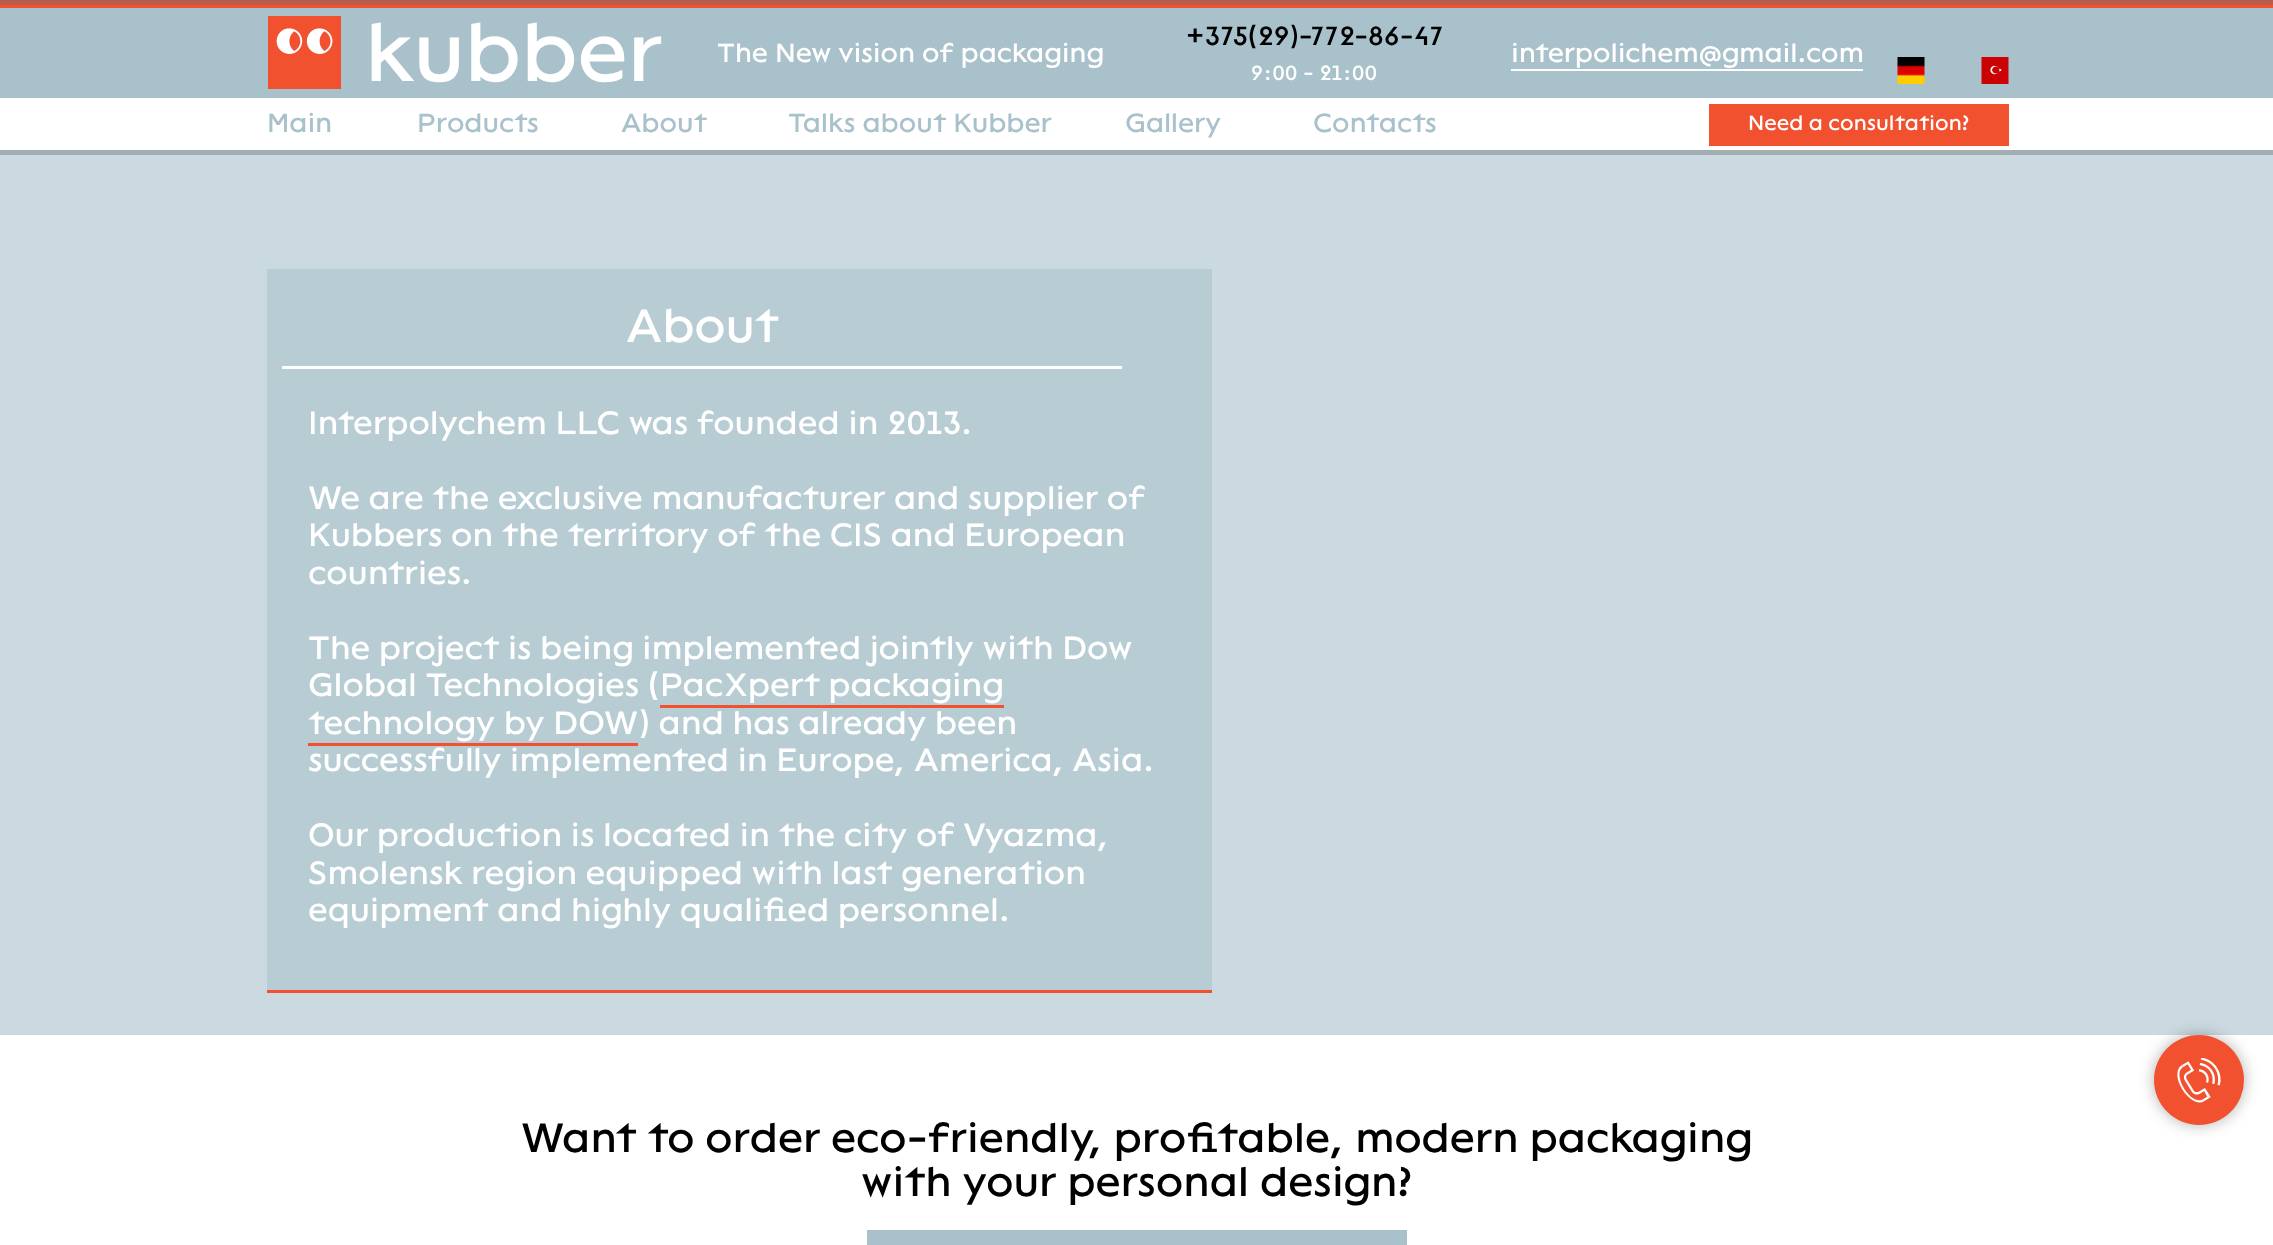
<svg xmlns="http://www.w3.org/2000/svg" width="2273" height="1245">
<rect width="100%" height="100%" fill="#fff"/>
<rect width="2273" height="5" fill="#b95b4a"/>
<rect y="8" width="2273" height="90" fill="#a9c1cb"/>
<rect y="5" width="2273" height="3" fill="#f25130"/>
<image x="268" y="16" width="73" height="73" href="media/1.png"/>
<text x="365" y="81" style="font-family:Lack;font-size:84px;fill:#fff">kubber</text>
<text x="1186" y="45" style="font-family:Lack;font-size:27px;fill:#000">+375(29)-772-86-47</text>
<text x="717" y="62" style="font-family:Lack;font-size:27px;fill:#fff">The New vision of packaging</text>
<text x="1251" y="80" style="font-family:Lack;font-size:21px;fill:#fff">9:00 - 21:00</text>
<text x="1511" y="62" style="font-family:Lack;font-size:27px;fill:#fff">interpolichem@gmail.com</text>
<rect x="1511" y="69" width="352" height="2" fill="#fff"/>
<image x="1897" y="57" width="28" height="27" href="media/2.png"/>
<image x="1981" y="57" width="28" height="27" href="media/3.png"/>
<text x="267" y="132" style="font-family:Lack;font-size:27px;fill:#a9c1cb">Main</text>
<text x="417" y="132" style="font-family:Lack;font-size:27px;fill:#a9c1cb">Products</text>
<text x="621" y="132" style="font-family:Lack;font-size:27px;fill:#a9c1cb">About</text>
<text x="788" y="132" style="font-family:Lack;font-size:27px;fill:#a9c1cb">Talks about Kubber</text>
<text x="1125" y="132" style="font-family:Lack;font-size:27px;fill:#a9c1cb">Gallery</text>
<text x="1313" y="132" style="font-family:Lack;font-size:27px;fill:#a9c1cb">Contacts</text>
<rect x="1709" y="104" width="300" height="42" fill="#f25130"/>
<text x="1748" y="130" style="font-family:Lack;font-size:21px;fill:#fff">Need a consultation?</text>
<rect y="150" width="2273" height="5" fill="#a2aeb4"/>
<rect y="155" width="2273" height="880" fill="#cbdae1"/>
<rect x="267" y="269" width="945" height="721" fill="#b7ccd3"/>
<text x="626" y="342" style="font-family:Lack;font-size:48px;fill:#fff">About</text>
<rect x="282" y="366" width="840" height="3" fill="#fff"/>
<text x="308" y="434" style="font-family:Lack;font-size:33px;fill:#fff">Interpolychem LLC was founded in 2013.</text>
<text x="308" y="509" style="font-family:Lack;font-size:33px;fill:#fff">We are the exclusive manufacturer and supplier of</text>
<text x="308" y="546" style="font-family:Lack;font-size:33px;fill:#fff">Kubbers on the territory of the CIS and European</text>
<text x="308" y="584" style="font-family:Lack;font-size:33px;fill:#fff">countries.</text>
<text x="308" y="659" style="font-family:Lack;font-size:33px;fill:#fff">The project is being implemented jointly with Dow</text>
<text x="308" y="696" style="font-family:Lack;font-size:33px;fill:#fff">Global Technologies (PacXpert packaging</text>
<text x="308" y="734" style="font-family:Lack;font-size:33px;fill:#fff">technology by DOW) and has already been</text>
<rect x="660" y="705" width="344" height="3" fill="#f25130"/>
<rect x="308" y="743" width="330" height="3" fill="#f25130"/>
<text x="308" y="771" style="font-family:Lack;font-size:33px;fill:#fff">successfully implemented in Europe, America, Asia.</text>
<text x="308" y="846" style="font-family:Lack;font-size:33px;fill:#fff">Our production is located in the city of Vyazma,</text>
<text x="308" y="884" style="font-family:Lack;font-size:33px;fill:#fff">Smolensk region equipped with last generation</text>
<text x="308" y="921" style="font-family:Lack;font-size:33px;fill:#fff">equipment and highly qualified personnel.</text>
<rect x="267" y="990" width="945" height="3" fill="#f25130"/>
<rect x="2154" y="1035" width="90" height="90" rx="45" fill="#0000004d" filter="blur(7.5px)"/>
<circle cx="2199" cy="1080" r="45" fill="#f25130"/>
<image x="2177" y="1058" width="44" height="45" href="media/4.png"/>
<text x="521" y="1152" style="font-family:Lack;font-size:42px;fill:#000">Want to order eco-friendly, profitable, modern packaging</text>
<text x="861" y="1196" style="font-family:Lack;font-size:42px;fill:#000">with your personal design?</text>
<rect x="867" y="1230" width="540" height="15" fill="#a9c1cb"/>
</svg>
